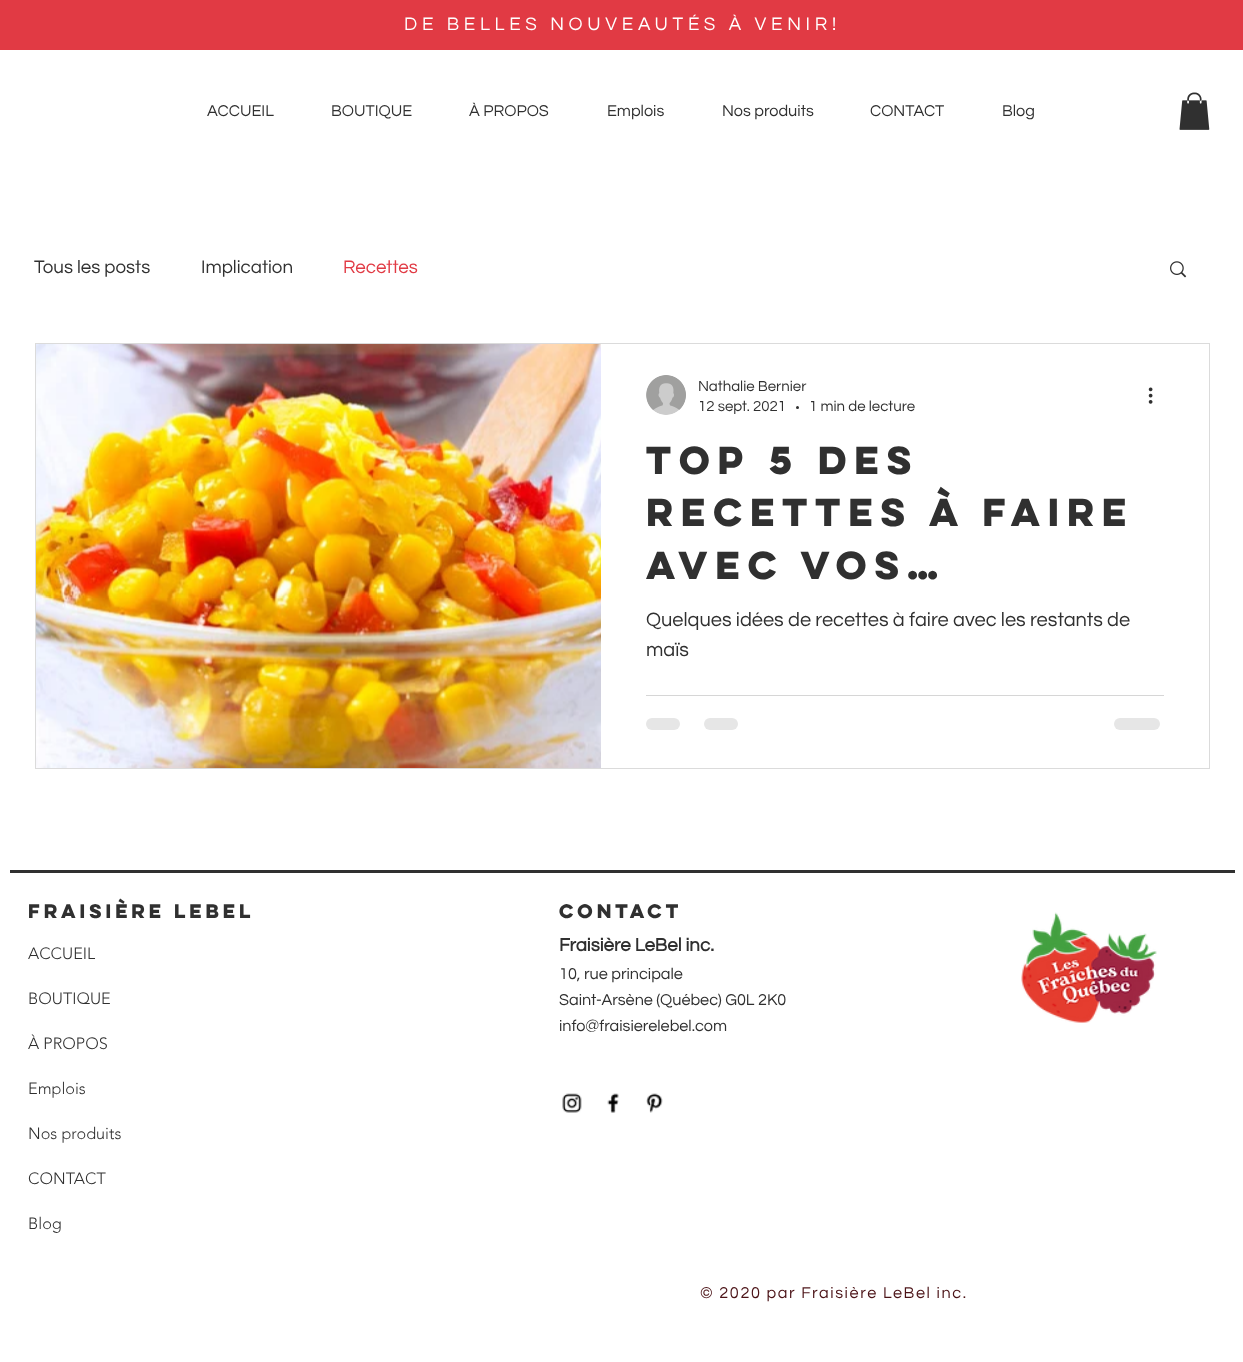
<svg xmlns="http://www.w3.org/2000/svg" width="1243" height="1362">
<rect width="100%" height="100%" fill="#fff"/>
<rect width="1243" height="50" fill="#e13a44"/>
<text x="404" y="30" style="font-family:Questrial;font-size:18.75px;letter-spacing:4.7px;fill:#fff">DE BELLES NOUVEAUTÉS À VENIR!</text>
<text x="207" y="116" style="font-family:Questrial;font-size:16.25px;fill:#303030">ACCUEIL</text>
<text x="331" y="116" style="font-family:Questrial;font-size:16.25px;fill:#303030">BOUTIQUE</text>
<text x="469" y="116" style="font-family:Questrial;font-size:16.25px;fill:#303030">À PROPOS</text>
<text x="607" y="116" style="font-family:Questrial;font-size:16.25px;fill:#303030">Emplois</text>
<text x="722" y="116" style="font-family:Questrial;font-size:16.25px;fill:#303030">Nos produits</text>
<text x="870" y="116" style="font-family:Questrial;font-size:16.25px;fill:#303030">CONTACT</text>
<text x="1002" y="116" style="font-family:Questrial;font-size:16.25px;fill:#303030">Blog</text>
<image x="1179" y="92" width="31" height="38" href="media/1.png"/>
<text x="34" y="273" style="font-family:Questrial;font-size:18.75px;fill:#303030">Tous les posts</text>
<text x="201" y="273" style="font-family:Questrial;font-size:18.75px;fill:#303030">Implication</text>
<text x="343" y="273" style="font-family:Questrial;font-size:18.75px;fill:#e13a44">Recettes</text>
<image x="1170" y="261" width="17" height="17" href="media/2.png"/>
<rect x="35.5" y="343.5" width="1174" height="425" fill="none" stroke="#dbdbdb"/>
<image x="36" y="344" width="565" height="424" href="media/3.png"/>
<image x="646" y="375" width="40" height="40" href="media/4.png"/>
<text x="698" y="391" style="font-family:Questrial;font-size:15px;fill:#303030">Nathalie Bernier</text>
<text x="698" y="411" style="font-family:Questrial;font-size:15px;fill:#303030">12 sept. 2021</text>
<circle cx="797.5" cy="407.5" r="1.5" fill="#303030"/>
<text x="809" y="411" style="font-family:Questrial;font-size:15px;fill:#303030">1 min de lecture</text>
<image x="1148" y="387" width="5" height="17" href="media/5.png"/>
<text x="646" y="474" style="font-family:'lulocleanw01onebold';font-size:35px;font-weight:bold;fill:#303030">Top 5 des</text>
<text x="646" y="526" style="font-family:'lulocleanw01onebold';font-size:35px;font-weight:bold;fill:#303030">recettes à faire</text>
<text x="646" y="579" style="font-family:'lulocleanw01onebold';font-size:35px;font-weight:bold;fill:#303030">avec vos…</text>
<text x="646" y="626" style="font-family:Questrial;font-size:20px;fill:#303030">Quelques idées de recettes à faire avec les restants de</text>
<text x="646" y="656" style="font-family:Questrial;font-size:20px;fill:#303030">maïs</text>
<rect x="646" y="695" width="518" height="1" fill="#d6d6d6"/>
<rect x="646" y="718" width="34" height="12" rx="6" fill="#e6e6e6"/>
<rect x="704" y="718" width="34" height="12" rx="6" fill="#e6e6e6"/>
<rect x="1114" y="718" width="46" height="12" rx="6" fill="#e6e6e6"/>
<rect x="10" y="870" width="1225" height="3" fill="#303030"/>
<text x="28" y="918" style="font-family:'lulocleanw01onebold';font-size:17.5px;font-weight:bold;fill:#303030">FRAISière Lebel</text>
<text x="559" y="918" style="font-family:'lulocleanw01onebold';font-size:17.5px;font-weight:bold;fill:#303030">CONTACT</text>
<image x="1021" y="912" width="136" height="111" href="media/6.png"/>
<text x="28" y="959" style="font-family:'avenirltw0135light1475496';font-size:16.25px;font-weight:300;fill:#303030">ACCUEIL</text>
<text x="28" y="1004" style="font-family:'avenirltw0135light1475496';font-size:16.25px;font-weight:300;fill:#303030">BOUTIQUE</text>
<text x="28" y="1049" style="font-family:'avenirltw0135light1475496';font-size:16.25px;font-weight:300;fill:#303030">À PROPOS</text>
<text x="28" y="1094" style="font-family:'avenirltw0135light1475496';font-size:16.25px;font-weight:300;fill:#303030">Emplois</text>
<text x="28" y="1139" style="font-family:'avenirltw0135light1475496';font-size:16.25px;font-weight:300;fill:#303030">Nos produits</text>
<text x="28" y="1184" style="font-family:'avenirltw0135light1475496';font-size:16.25px;font-weight:300;fill:#303030">CONTACT</text>
<text x="28" y="1229" style="font-family:'avenirltw0135light1475496';font-size:16.25px;font-weight:300;fill:#303030">Blog</text>
<text x="559" y="951" style="font-family:Questrial;font-size:18.75px;font-weight:bold;fill:#303030">Fraisière LeBel inc.</text>
<text x="559" y="979" style="font-family:Questrial;font-size:16.25px;fill:#303030">10, rue principale</text>
<text x="559" y="1005" style="font-family:Questrial;font-size:16.25px;fill:#303030">Saint-Arsène (Québec) G0L 2K0</text>
<text x="559" y="1031" style="font-family:Questrial;font-size:16.25px;fill:#303030">info@fraisierelebel.com</text>
<image x="562" y="1093" width="20" height="20" href="media/7.png"/>
<image x="607" y="1093" width="12" height="20" href="media/8.png"/>
<image x="646" y="1093" width="17" height="20" href="media/9.png"/>
<text x="700" y="1298" style="font-family:Questrial;font-size:16.25px;letter-spacing:1.6px;fill:#4b1317">© 2020 par Fraisière LeBel inc.</text>
</svg>
